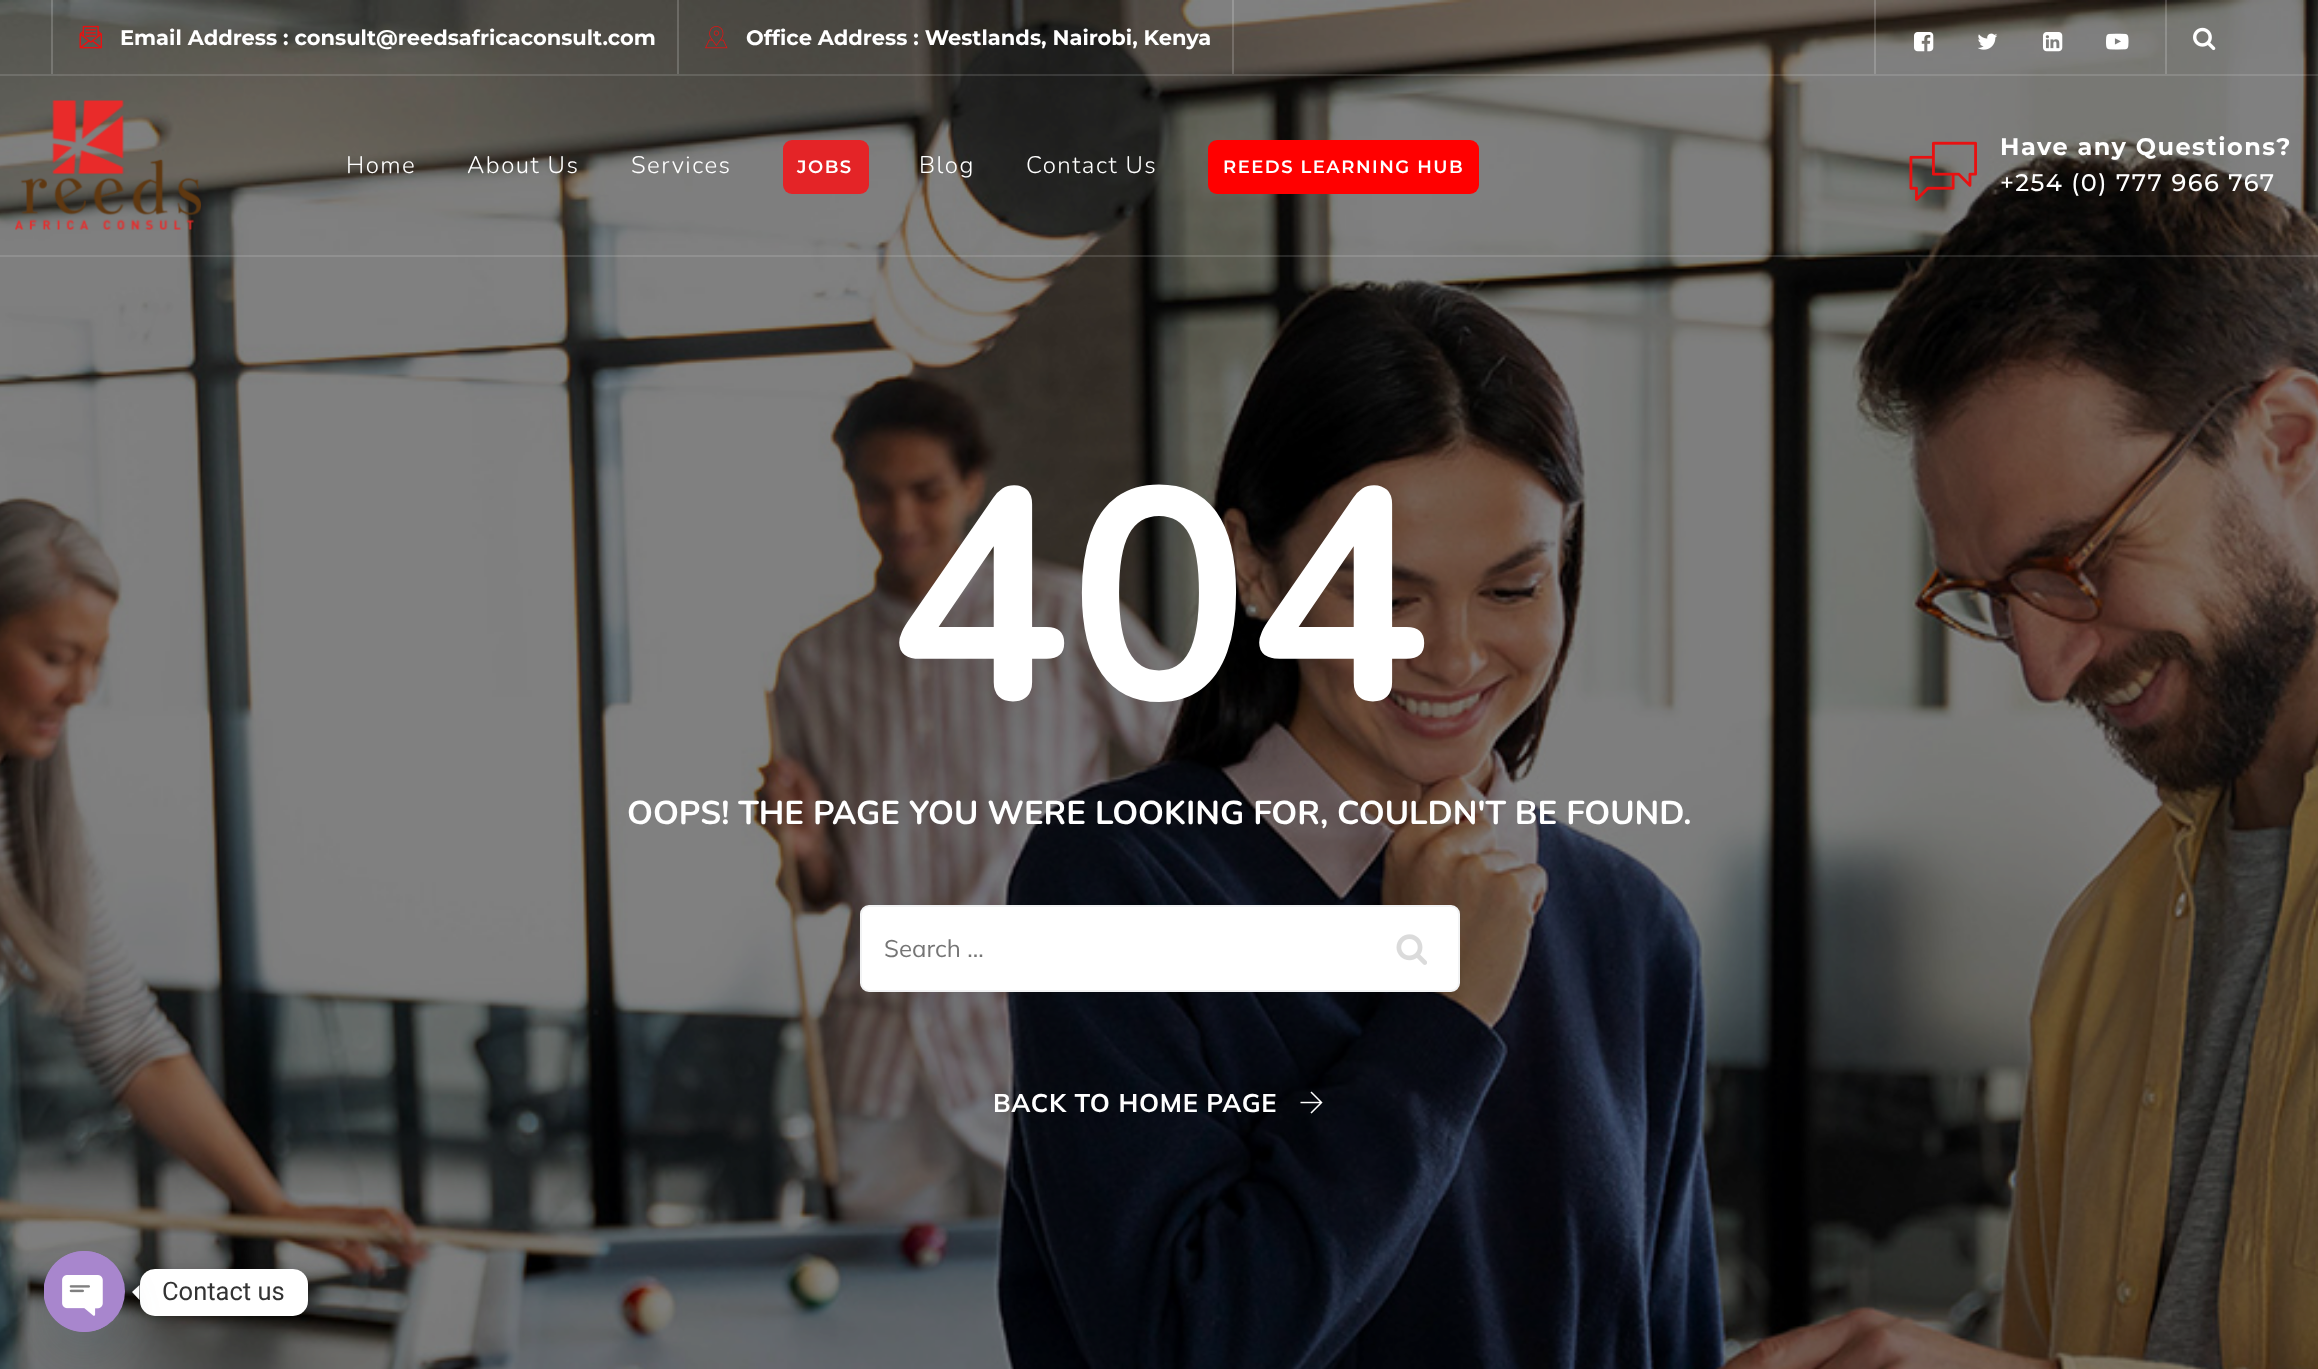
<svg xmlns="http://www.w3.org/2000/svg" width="2318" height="1369">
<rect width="100%" height="100%" fill="#fff"/>
<image x="0" y="0" width="2318" height="1369" href="media/10.png"/>
<rect y="255" width="2318" height="2" fill="#ffffff21"/>
<rect y="74" width="2318" height="2" fill="#ffffff21"/>
<rect x="51" width="2" height="74" fill="#ffffff2e"/>
<image x="79" y="25" width="23" height="24" href="media/1.png"/>
<text x="120" y="45" style="font-family:Montserrat;font-size:21px;font-weight:bold;fill:#fff">Email Address : consult@reedsafricaconsult.com</text>
<rect x="677" width="2" height="74" fill="#ffffff2e"/>
<image x="705" y="26" width="23" height="23" href="media/2.png"/>
<text x="746" y="45" style="font-family:Montserrat;font-size:21px;font-weight:bold;fill:#fff">Office Address : Westlands, Nairobi, Kenya</text>
<rect x="1232" width="2" height="74" fill="#ffffff2e"/>
<rect x="1874" width="2" height="74" fill="#ffffff2e"/>
<image x="1914" y="32" width="20" height="20" href="media/3.png"/>
<image x="1977" y="33" width="21" height="17" href="media/4.png"/>
<image x="2043" y="32" width="20" height="20" href="media/5.png"/>
<image x="2106" y="33" width="23" height="17" href="media/6.png"/>
<rect x="2165" width="2" height="74" fill="#ffffff2e"/>
<image x="2193" y="27" width="23" height="24" href="media/7.png"/>
<image x="15" y="100" width="186" height="130" href="media/8.png"/>
<text x="346" y="173" style="font-family:Nunito;font-size:24px;font-weight:300;letter-spacing:1.5px;fill:#fff">Home</text>
<text x="467" y="173" style="font-family:Nunito;font-size:24px;font-weight:300;letter-spacing:1.5px;fill:#fff">About Us</text>
<text x="631" y="173" style="font-family:Nunito;font-size:24px;font-weight:300;letter-spacing:1.5px;fill:#fff">Services</text>
<rect x="783" y="140" width="86" height="54" rx="9" fill="#e42427"/>
<text x="797" y="173" style="font-family:Montserrat;font-size:18px;font-weight:600;letter-spacing:1.5px;fill:#fff">JOBS</text>
<text x="919" y="173" style="font-family:Nunito;font-size:24px;font-weight:300;letter-spacing:1.5px;fill:#fff">Blog</text>
<text x="1026" y="173" style="font-family:Nunito;font-size:24px;font-weight:300;letter-spacing:1.5px;fill:#fff">Contact Us</text>
<rect x="1208" y="140" width="271" height="54" rx="9" fill="#f00"/>
<text x="1223" y="173" style="font-family:Montserrat;font-size:18px;font-weight:600;letter-spacing:1.5px;fill:#fff">REEDS LEARNING HUB</text>
<image x="1909" y="141" width="68" height="60" href="media/9.png"/>
<text x="2000" y="155" style="font-family:Montserrat;font-size:24px;font-weight:bold;letter-spacing:1.5px;fill:#fff">Have any Questions?</text>
<text x="2000" y="191" style="font-family:Montserrat;font-size:24px;font-weight:500;letter-spacing:1.5px;fill:#fff">+254 (0) 777 966 767</text>
<text x="889" y="699" style="font-family:Nunito;font-size:300px;font-weight:bold;fill:#fff">404</text>
<text x="627" y="824" style="font-family:Nunito;font-size:33px;font-weight:bold;fill:#fff">OOPS! THE PAGE YOU WERE LOOKING FOR, COULDN'T BE FOUND.</text>
<rect x="861" y="906" width="598" height="85" rx="8" fill="#fff" stroke="#f2f3f4" stroke-width="2"/>
<text x="884" y="957" style="font-family:Mulish;font-size:24px;fill:#757575">Search …</text>
<image x="1396" y="934" width="31" height="31" href="media/11.png"/>
<text x="993" y="1112" style="font-family:Mulish;font-size:25.5px;font-weight:bold;letter-spacing:0.75px;fill:#fff">BACK TO HOME PAGE</text>
<image x="1300" y="1091" width="23" height="23" href="media/12.png"/>
<rect x="140" y="1271" width="168" height="46" rx="15" fill="#00000026" filter="blur(6px)"/>
<rect x="140" y="1269" width="168" height="47" rx="15" fill="#fff"/>
<path d="M139.5 1285v15l-7.5-8z" fill="#fff"/>
<rect x="44" y="1275" width="81" height="81" rx="40.5" fill="#49687e29" filter="blur(18px)"/>
<circle cx="84.5" cy="1291.5" r="40.5" fill="#a886cd"/>
<image x="44" y="1251" width="63" height="81" href="media/13.png"/>
<text x="162" y="1300" style="font-family:Roboto;font-size:25.5px;fill:#333">Contact us</text>
</svg>
